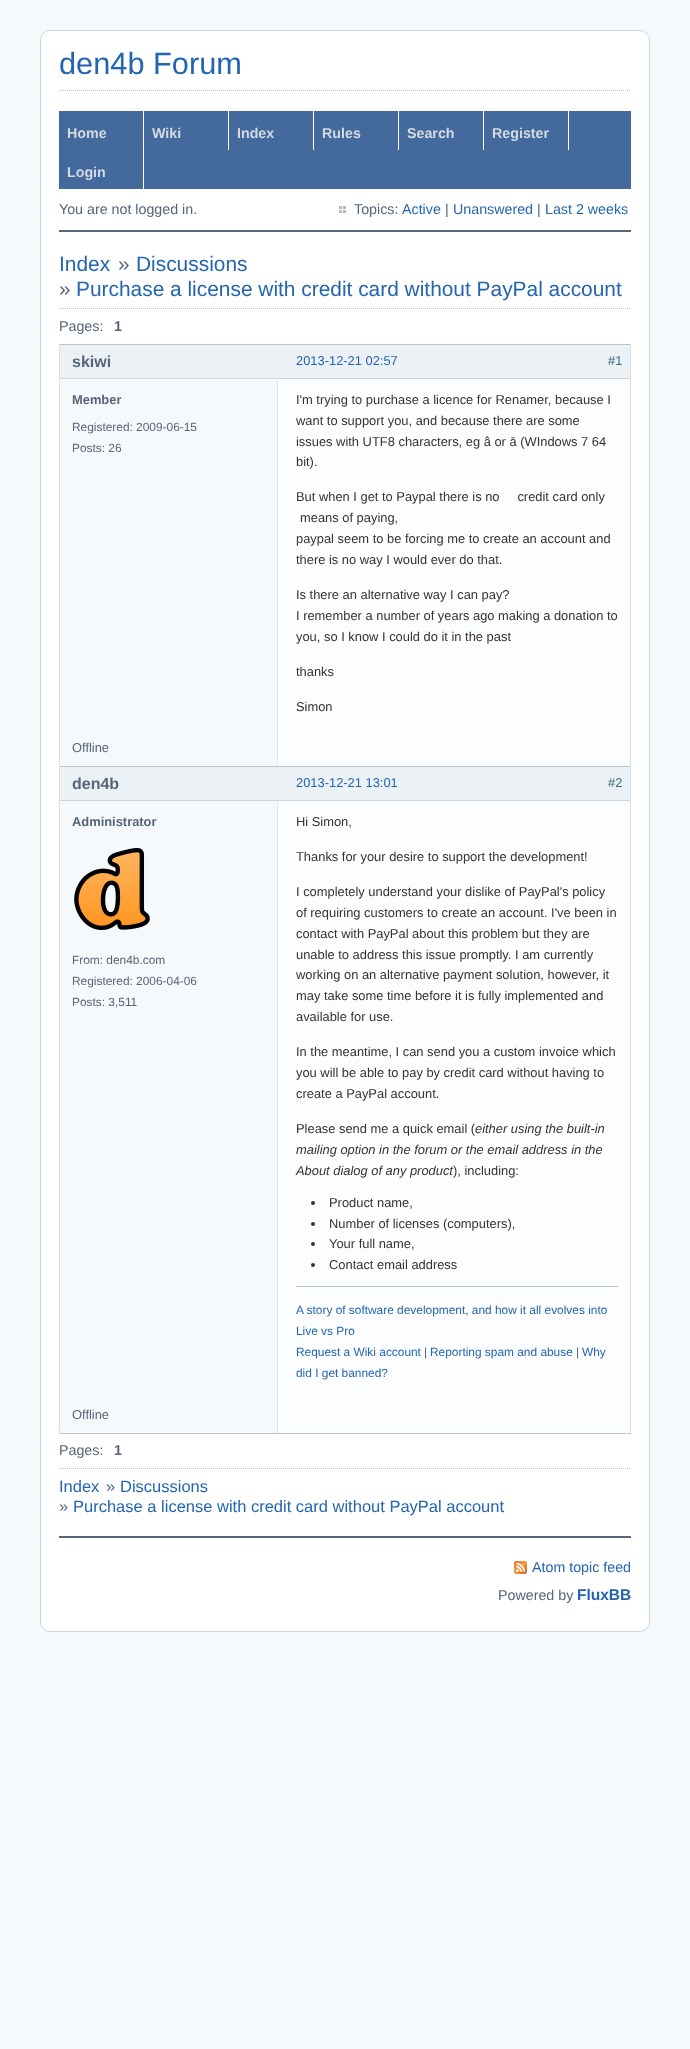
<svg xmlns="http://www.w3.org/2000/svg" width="690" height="2049">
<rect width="100%" height="100%" fill="#f6f9fc"/>
<rect x="40.5" y="30.5" width="609" height="1601" rx="9.5" fill="#fff" stroke="#cad7e1"/>
<text x="59" y="74" style="font-family:Liberation Sans;font-size:30.75px;fill:#2365b0">den4b Forum</text>
<path d="M59 90.5h572" fill="none" stroke="#b9c5ce" stroke-dasharray="1 1"/>
<rect x="59" y="111" width="572" height="78" fill="#44699c"/>
<rect x="143" y="111" width="1" height="78" fill="#fff"/>
<text x="67" y="138" style="font-family:Liberation Sans;font-size:14.25px;font-weight:bold;fill:#d4dae2">Home</text>
<rect x="228" y="111" width="1" height="39" fill="#fff"/>
<text x="152" y="138" style="font-family:Liberation Sans;font-size:14.25px;font-weight:bold;fill:#d4dae2">Wiki</text>
<rect x="313" y="111" width="1" height="39" fill="#fff"/>
<text x="237" y="138" style="font-family:Liberation Sans;font-size:14.25px;font-weight:bold;fill:#d4dae2">Index</text>
<rect x="398" y="111" width="1" height="39" fill="#fff"/>
<text x="322" y="138" style="font-family:Liberation Sans;font-size:14.25px;font-weight:bold;fill:#d4dae2">Rules</text>
<rect x="483" y="111" width="1" height="39" fill="#fff"/>
<text x="407" y="138" style="font-family:Liberation Sans;font-size:14.25px;font-weight:bold;fill:#d4dae2">Search</text>
<rect x="568" y="111" width="1" height="39" fill="#fff"/>
<text x="492" y="138" style="font-family:Liberation Sans;font-size:14.25px;font-weight:bold;fill:#d4dae2">Register</text>
<text x="67" y="177" style="font-family:Liberation Sans;font-size:14.25px;font-weight:bold;fill:#d4dae2">Login</text>
<text x="59" y="214" style="font-family:Liberation Sans;font-size:14.25px;fill:#566579">You are not logged in.</text>
<image x="339" y="206" width="7" height="7" href="media/1.png"/>
<text x="354" y="214" style="font-family:Liberation Sans;font-size:14.25px;fill:#566579">Topics:</text>
<text x="402" y="214" style="font-family:Liberation Sans;font-size:14.25px;fill:#2365b0">Active</text>
<text x="445" y="214" style="font-family:Liberation Sans;font-size:14.25px;fill:#566579">|</text>
<text x="453" y="214" style="font-family:Liberation Sans;font-size:14.25px;fill:#2365b0">Unanswered</text>
<text x="537" y="214" style="font-family:Liberation Sans;font-size:14.25px;fill:#566579">|</text>
<text x="545" y="214" style="font-family:Liberation Sans;font-size:14.25px;fill:#2365b0">Last 2 weeks</text>
<rect x="59" y="230" width="572" height="2" fill="#566579"/>
<rect x="59" y="1536" width="572" height="2" fill="#566579"/>
<text x="59" y="271" style="font-family:Liberation Sans;font-size:20.9px;fill:#2365b0">Index</text>
<text x="118" y="271" style="font-family:Liberation Sans;font-size:20.9px;fill:#566579">»</text>
<text x="136" y="271" style="font-family:Liberation Sans;font-size:20.9px;fill:#2365b0">Discussions</text>
<text x="59" y="296" style="font-family:Liberation Sans;font-size:20.9px;fill:#566579">»</text>
<text x="76" y="296" style="font-family:Liberation Sans;font-size:20.9px;fill:#2365b0">Purchase a license with credit card without PayPal account</text>
<path d="M59 308.5h572" fill="none" stroke="#b9c5ce" stroke-dasharray="1 1"/>
<text x="59" y="331" style="font-family:Liberation Sans;font-size:14.25px;fill:#566579">Pages:</text>
<text x="114" y="331" style="font-family:Liberation Sans;font-size:14.25px;font-weight:bold;fill:#566579">1</text>
<rect x="60" y="379" width="217" height="387" fill="#f6f9fc"/>
<rect x="59" y="344" width="572" height="1" fill="#b9c5ce"/>
<rect x="630" y="344" width="1" height="423" fill="#d9e1e7"/>
<rect x="59" y="344" width="1" height="423" fill="#d9e1e7"/>
<rect x="278" y="379" width="352" height="387" fill="#fcfdfe"/>
<rect x="277" y="379" width="1" height="387" fill="#dfe6ee"/>
<rect x="60" y="345" width="570" height="33" fill="#ebf1f5"/>
<text x="72" y="367" style="font-family:Liberation Sans;font-size:16px;font-weight:bold;fill:#566579">skiwi</text>
<text x="72" y="404" style="font-family:Liberation Sans;font-size:12.9px;font-weight:bold;fill:#566579">Member</text>
<text x="72" y="431" style="font-family:Liberation Sans;font-size:11.9px;fill:#566579">Registered: 2009-06-15</text>
<text x="72" y="452" style="font-family:Liberation Sans;font-size:11.9px;fill:#566579">Posts: 26</text>
<text x="296" y="404" style="font-family:Liberation Sans;font-size:12.9px;fill:#333">I'm trying to purchase a licence for Renamer, because I</text>
<text x="296" y="425" style="font-family:Liberation Sans;font-size:12.9px;fill:#333">want to support you, and because there are some</text>
<text x="296" y="446" style="font-family:Liberation Sans;font-size:12.9px;fill:#333">issues with UTF8 characters, eg â or ā (WIndows 7 64</text>
<text x="296" y="466" style="font-family:Liberation Sans;font-size:12.9px;fill:#333">bit).</text>
<text x="296" y="501" style="font-family:Liberation Sans;font-size:12.9px;fill:#333" xml:space="preserve">But when I get to Paypal there is no     credit card only</text>
<text x="300" y="522" style="font-family:Liberation Sans;font-size:12.9px;fill:#333">means of paying,</text>
<text x="296" y="543" style="font-family:Liberation Sans;font-size:12.9px;fill:#333">paypal seem to be forcing me to create an account and</text>
<text x="296" y="564" style="font-family:Liberation Sans;font-size:12.9px;fill:#333">there is no way I would ever do that.</text>
<text x="296" y="599" style="font-family:Liberation Sans;font-size:12.9px;fill:#333">Is there an alternative way I can pay?</text>
<text x="296" y="620" style="font-family:Liberation Sans;font-size:12.9px;fill:#333">I remember a number of years ago making a donation to</text>
<text x="296" y="641" style="font-family:Liberation Sans;font-size:12.9px;fill:#333">you, so I know I could do it in the past</text>
<text x="296" y="676" style="font-family:Liberation Sans;font-size:12.9px;fill:#333">thanks</text>
<text x="296" y="711" style="font-family:Liberation Sans;font-size:12.9px;fill:#333">Simon</text>
<text x="72" y="752" style="font-family:Liberation Sans;font-size:12.9px;fill:#566579">Offline</text>
<rect x="60" y="378" width="570" height="1" fill="#cad7e1"/>
<text x="296" y="365" style="font-family:Liberation Sans;font-size:12.9px;fill:#2365b0">2013-12-21 02:57</text>
<text x="608" y="365" style="font-family:Liberation Sans;font-size:12.9px;fill:#357082">#1</text>
<rect x="60" y="801" width="217" height="632" fill="#f6f9fc"/>
<rect x="59" y="766" width="572" height="1" fill="#b9c5ce"/>
<rect x="630" y="766" width="1" height="668" fill="#d9e1e7"/>
<rect x="59" y="1433" width="572" height="1" fill="#b9c5ce"/>
<rect x="59" y="766" width="1" height="668" fill="#d9e1e7"/>
<rect x="278" y="801" width="352" height="632" fill="#fcfdfe"/>
<rect x="277" y="801" width="1" height="632" fill="#dfe6ee"/>
<rect x="60" y="767" width="570" height="33" fill="#ebf1f5"/>
<text x="72" y="789" style="font-family:Liberation Sans;font-size:16px;font-weight:bold;fill:#566579">den4b</text>
<text x="72" y="826" style="font-family:Liberation Sans;font-size:12.9px;font-weight:bold;fill:#566579">Administrator</text>
<image x="74" y="848" width="76" height="83" href="media/2.png"/>
<text x="72" y="964" style="font-family:Liberation Sans;font-size:11.9px;fill:#566579">From: den4b.com</text>
<text x="72" y="985" style="font-family:Liberation Sans;font-size:11.9px;fill:#566579">Registered: 2006-04-06</text>
<text x="72" y="1006" style="font-family:Liberation Sans;font-size:11.9px;fill:#566579">Posts: 3,511</text>
<text x="296" y="826" style="font-family:Liberation Sans;font-size:12.9px;fill:#333">Hi Simon,</text>
<text x="296" y="861" style="font-family:Liberation Sans;font-size:12.9px;fill:#333">Thanks for your desire to support the development!</text>
<text x="296" y="896" style="font-family:Liberation Sans;font-size:12.9px;fill:#333">I completely understand your dislike of PayPal's policy</text>
<text x="296" y="917" style="font-family:Liberation Sans;font-size:12.9px;fill:#333">of requiring customers to create an account. I've been in</text>
<text x="296" y="938" style="font-family:Liberation Sans;font-size:12.9px;fill:#333">contact with PayPal about this problem but they are</text>
<text x="296" y="959" style="font-family:Liberation Sans;font-size:12.9px;fill:#333">unable to address this issue promptly. I am currently</text>
<text x="296" y="979" style="font-family:Liberation Sans;font-size:12.9px;fill:#333">working on an alternative payment solution, however, it</text>
<text x="296" y="1000" style="font-family:Liberation Sans;font-size:12.9px;fill:#333">may take some time before it is fully implemented and</text>
<text x="296" y="1021" style="font-family:Liberation Sans;font-size:12.9px;fill:#333">available for use.</text>
<text x="296" y="1056" style="font-family:Liberation Sans;font-size:12.9px;fill:#333">In the meantime, I can send you a custom invoice which</text>
<text x="296" y="1077" style="font-family:Liberation Sans;font-size:12.9px;fill:#333">you will be able to pay by credit card without having to</text>
<text x="296" y="1098" style="font-family:Liberation Sans;font-size:12.9px;fill:#333">create a PayPal account.</text>
<text x="296" y="1133" style="font-family:Liberation Sans;font-size:12.9px;fill:#333">Please send me a quick email (</text>
<text x="475" y="1133" style="font-family:Liberation Sans;font-size:12.9px;font-style:italic;fill:#333">either using the built-in</text>
<text x="296" y="1154" style="font-family:Liberation Sans;font-size:12.9px;font-style:italic;fill:#333">mailing option in the forum or the email address in the</text>
<text x="296" y="1175" style="font-family:Liberation Sans;font-size:12.9px;font-style:italic;fill:#333">About dialog of any product</text>
<text x="453" y="1175" style="font-family:Liberation Sans;font-size:12.9px;fill:#333">), including:</text>
<circle cx="313" cy="1203" r="2" fill="#333"/>
<text x="329" y="1207" style="font-family:Liberation Sans;font-size:12.9px;fill:#333">Product name,</text>
<circle cx="313" cy="1224" r="2" fill="#333"/>
<text x="329" y="1228" style="font-family:Liberation Sans;font-size:12.9px;fill:#333">Number of licenses (computers),</text>
<circle cx="313" cy="1244" r="2" fill="#333"/>
<text x="329" y="1248" style="font-family:Liberation Sans;font-size:12.9px;fill:#333">Your full name,</text>
<circle cx="313" cy="1265" r="2" fill="#333"/>
<text x="329" y="1269" style="font-family:Liberation Sans;font-size:12.9px;fill:#333">Contact email address</text>
<rect x="296" y="1286" width="322" height="1" fill="#b9c5ce"/>
<text x="296" y="1314" style="font-family:Liberation Sans;font-size:11.9px;fill:#2365b0">A story of software development, and how it all evolves into</text>
<text x="296" y="1335" style="font-family:Liberation Sans;font-size:11.9px;fill:#2365b0">Live vs Pro</text>
<text x="296" y="1356" style="font-family:Liberation Sans;font-size:11.9px;fill:#2365b0">Request a Wiki account</text>
<text x="424" y="1356" style="font-family:Liberation Sans;font-size:11.9px;fill:#566579">|</text>
<text x="430" y="1356" style="font-family:Liberation Sans;font-size:11.9px;fill:#2365b0">Reporting spam and abuse</text>
<text x="576" y="1356" style="font-family:Liberation Sans;font-size:11.9px;fill:#566579">|</text>
<text x="582" y="1356" style="font-family:Liberation Sans;font-size:11.9px;fill:#2365b0">Why</text>
<text x="296" y="1377" style="font-family:Liberation Sans;font-size:11.9px;fill:#2365b0">did I get banned?</text>
<text x="72" y="1419" style="font-family:Liberation Sans;font-size:12.9px;fill:#566579">Offline</text>
<rect x="60" y="800" width="570" height="1" fill="#cad7e1"/>
<text x="296" y="787" style="font-family:Liberation Sans;font-size:12.9px;fill:#2365b0">2013-12-21 13:01</text>
<text x="608" y="787" style="font-family:Liberation Sans;font-size:12.9px;fill:#357082">#2</text>
<path d="M59 1468.5h572" fill="none" stroke="#b9c5ce" stroke-dasharray="1 1"/>
<text x="59" y="1455" style="font-family:Liberation Sans;font-size:14.25px;fill:#566579">Pages:</text>
<text x="114" y="1455" style="font-family:Liberation Sans;font-size:14.25px;font-weight:bold;fill:#566579">1</text>
<text x="59" y="1492" style="font-family:Liberation Sans;font-size:16.5px;fill:#2365b0">Index</text>
<text x="106" y="1492" style="font-family:Liberation Sans;font-size:16.5px;fill:#566579">»</text>
<text x="120" y="1492" style="font-family:Liberation Sans;font-size:16.5px;fill:#2365b0">Discussions</text>
<text x="59" y="1512" style="font-family:Liberation Sans;font-size:16.5px;fill:#566579">»</text>
<text x="73" y="1512" style="font-family:Liberation Sans;font-size:16.5px;fill:#2365b0">Purchase a license with credit card without PayPal account</text>
<image x="514" y="1561" width="13" height="13" href="media/3.png"/>
<text x="532" y="1572" style="font-family:Liberation Sans;font-size:14.25px;fill:#2365b0">Atom topic feed</text>
<text x="498" y="1600" style="font-family:Liberation Sans;font-size:14.25px;fill:#566579">Powered by</text>
<text x="577" y="1600" style="font-family:Liberation Sans;font-size:15.5px;font-weight:bold;fill:#2365b0">FluxBB</text>
</svg>
